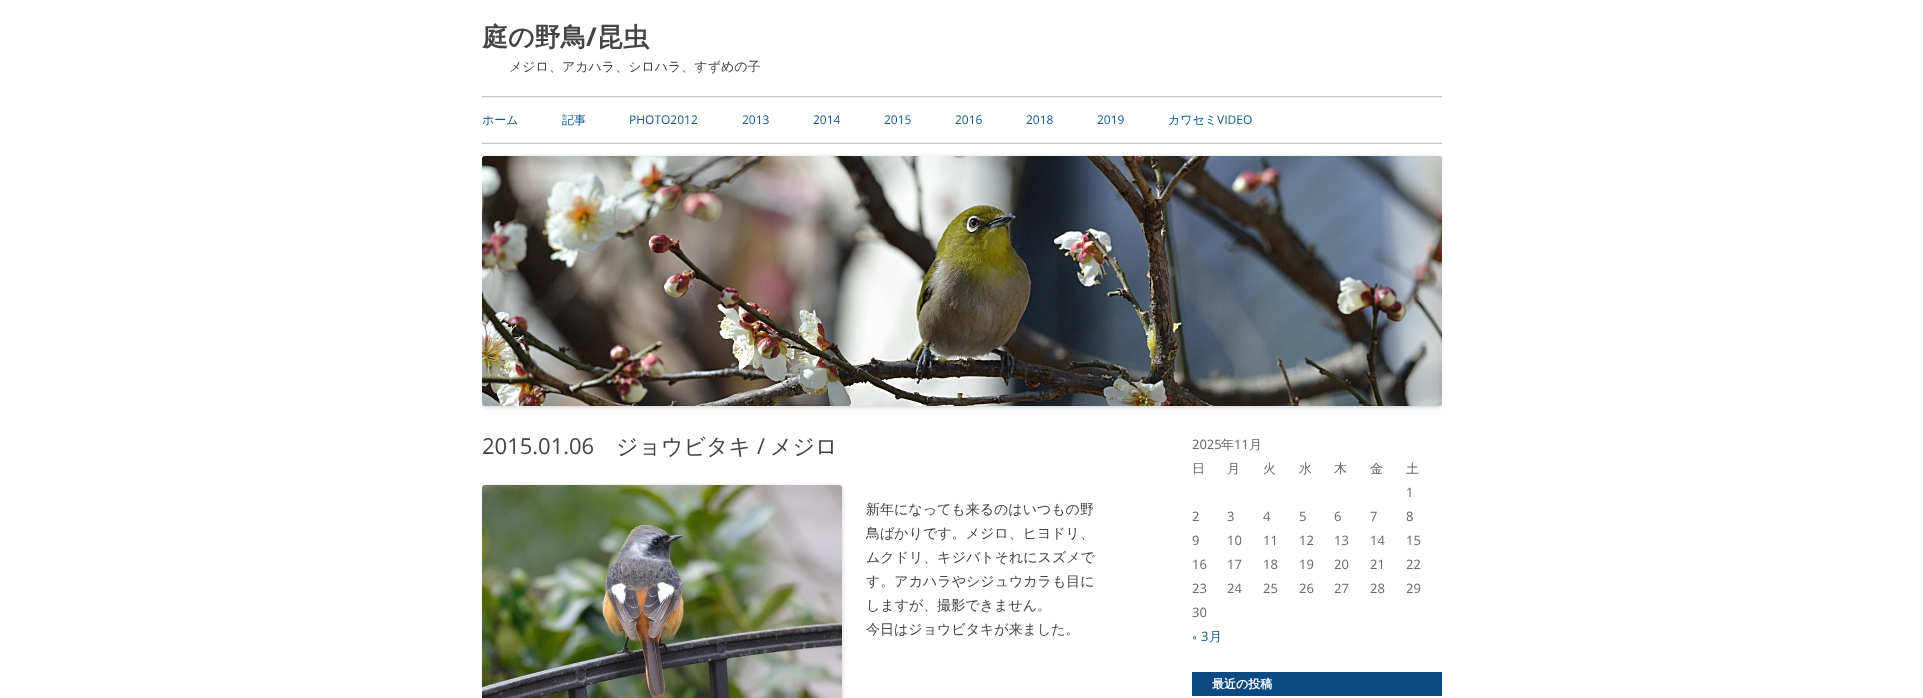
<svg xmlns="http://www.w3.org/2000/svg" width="1923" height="698">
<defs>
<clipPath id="clip1"><rect x="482" y="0" width="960" height="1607"/></clipPath>
</defs>
<rect width="100%" height="100%" fill="#fff"/>
<text x="482" y="46" style="font-family:WenQuanYi Zen Hei;font-size:26px;font-weight:bold;fill:#444">庭の野鳥</text>
<text x="586" y="46" style="font-family:Open Sans;font-size:26px;font-weight:bold;fill:#444">/</text>
<text x="597" y="46" style="font-family:WenQuanYi Zen Hei;font-size:26px;font-weight:bold;fill:#444">昆虫</text>
<text x="509" y="71" style="font-family:WenQuanYi Zen Hei;font-size:13px;font-weight:500;fill:#444">メジロ、アカハラ、シロハラ、すずめの子</text>
<rect x="482" y="96" width="960" height="1" fill="#c7c7c7"/>
<rect x="482" y="143" width="960" height="1" fill="#c7c7c7"/>
<rect x="482" y="97" width="960" height="1" fill="#ededed"/>
<rect x="482" y="142" width="960" height="1" fill="#ededed"/>
<text x="482" y="124" style="font-family:WenQuanYi Zen Hei;font-size:12px;font-weight:500;fill:#0c5898">ホーム</text>
<text x="562" y="124" style="font-family:WenQuanYi Zen Hei;font-size:12px;font-weight:500;fill:#0c5898">記事</text>
<text x="629" y="124" style="font-family:Open Sans;font-size:12px;fill:#0c5898">PHOTO2012</text>
<text x="742" y="124" style="font-family:Open Sans;font-size:12px;fill:#0c5898">2013</text>
<text x="813" y="124" style="font-family:Open Sans;font-size:12px;fill:#0c5898">2014</text>
<text x="884" y="124" style="font-family:Open Sans;font-size:12px;fill:#0c5898">2015</text>
<text x="955" y="124" style="font-family:Open Sans;font-size:12px;fill:#0c5898">2016</text>
<text x="1026" y="124" style="font-family:Open Sans;font-size:12px;fill:#0c5898">2018</text>
<text x="1097" y="124" style="font-family:Open Sans;font-size:12px;fill:#0c5898">2019</text>
<text x="1168" y="124" style="font-family:WenQuanYi Zen Hei;font-size:12px;font-weight:500;fill:#0c5898">カワセミ</text>
<text x="1217" y="124" style="font-family:Open Sans;font-size:12px;fill:#0c5898">VIDEO</text>
<g clip-path="url(#clip1)">
<rect x="482" y="157" width="960" height="250" rx="3" fill="#00000033" filter="blur(2px)"/>
</g>
<image x="482" y="156" width="960" height="250" href="media/1.png"/>
<text x="482" y="454" style="font-family:Open Sans;font-size:22px;fill:#444">2015.01.06</text>
<text x="616" y="454" style="font-family:WenQuanYi Zen Hei;font-size:22px;font-weight:500;fill:#444">ジョウビタキ</text>
<text x="757" y="454" style="font-family:Open Sans;font-size:22px;fill:#444">/</text>
<text x="770" y="454" style="font-family:WenQuanYi Zen Hei;font-size:22px;font-weight:500;fill:#444">メジロ</text>
<g clip-path="url(#clip1)">
<rect x="482" y="486" width="360" height="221" rx="3" fill="#00000033" filter="blur(2px)"/>
</g>
<image x="482" y="485" width="360" height="213" href="media/2.png"/>
<text x="866" y="514" style="font-family:WenQuanYi Zen Hei;font-size:14px;font-weight:500;fill:#444">新年になっても来るのはいつもの野</text>
<text x="866" y="538" style="font-family:WenQuanYi Zen Hei;font-size:14px;font-weight:500;fill:#444">鳥ばかりです。メジロ、ヒヨドリ、</text>
<text x="866" y="562" style="font-family:WenQuanYi Zen Hei;font-size:14px;font-weight:500;fill:#444">ムクドリ、キジバトそれにスズメで</text>
<text x="866" y="586" style="font-family:WenQuanYi Zen Hei;font-size:14px;font-weight:500;fill:#444">す。アカハラやシジュウカラも目に</text>
<text x="866" y="610" style="font-family:WenQuanYi Zen Hei;font-size:14px;font-weight:500;fill:#444">しますが、撮影できません。</text>
<text x="866" y="634" style="font-family:WenQuanYi Zen Hei;font-size:14px;font-weight:500;fill:#444">今日はジョウビタキが来ました。</text>
<text x="1192" y="449" style="font-family:Open Sans;font-size:13px;fill:#686868">2025</text>
<text x="1221" y="449" style="font-family:WenQuanYi Zen Hei;font-size:13px;font-weight:500;fill:#686868">年</text>
<text x="1234" y="449" style="font-family:Open Sans;font-size:13px;fill:#686868">11</text>
<text x="1249" y="449" style="font-family:WenQuanYi Zen Hei;font-size:13px;font-weight:500;fill:#686868">月</text>
<text x="1192" y="473" style="font-family:WenQuanYi Zen Hei;font-size:13px;font-weight:500;fill:#686868">日</text>
<text x="1227" y="473" style="font-family:WenQuanYi Zen Hei;font-size:13px;font-weight:500;fill:#686868">月</text>
<text x="1263" y="473" style="font-family:WenQuanYi Zen Hei;font-size:13px;font-weight:500;fill:#686868">火</text>
<text x="1299" y="473" style="font-family:WenQuanYi Zen Hei;font-size:13px;font-weight:500;fill:#686868">水</text>
<text x="1334" y="473" style="font-family:WenQuanYi Zen Hei;font-size:13px;font-weight:500;fill:#686868">木</text>
<text x="1370" y="473" style="font-family:WenQuanYi Zen Hei;font-size:13px;font-weight:500;fill:#686868">金</text>
<text x="1406" y="473" style="font-family:WenQuanYi Zen Hei;font-size:13px;font-weight:500;fill:#686868">土</text>
<text x="1406" y="497" style="font-family:Open Sans;font-size:13px;fill:#686868">1</text>
<text x="1192" y="521" style="font-family:Open Sans;font-size:13px;fill:#686868">2</text>
<text x="1227" y="521" style="font-family:Open Sans;font-size:13px;fill:#686868">3</text>
<text x="1263" y="521" style="font-family:Open Sans;font-size:13px;fill:#686868">4</text>
<text x="1299" y="521" style="font-family:Open Sans;font-size:13px;fill:#686868">5</text>
<text x="1334" y="521" style="font-family:Open Sans;font-size:13px;fill:#686868">6</text>
<text x="1370" y="521" style="font-family:Open Sans;font-size:13px;fill:#686868">7</text>
<text x="1406" y="521" style="font-family:Open Sans;font-size:13px;fill:#686868">8</text>
<text x="1192" y="545" style="font-family:Open Sans;font-size:13px;fill:#686868">9</text>
<text x="1227" y="545" style="font-family:Open Sans;font-size:13px;fill:#686868">10</text>
<text x="1263" y="545" style="font-family:Open Sans;font-size:13px;fill:#686868">11</text>
<text x="1299" y="545" style="font-family:Open Sans;font-size:13px;fill:#686868">12</text>
<text x="1334" y="545" style="font-family:Open Sans;font-size:13px;fill:#686868">13</text>
<text x="1370" y="545" style="font-family:Open Sans;font-size:13px;fill:#686868">14</text>
<text x="1406" y="545" style="font-family:Open Sans;font-size:13px;fill:#686868">15</text>
<text x="1192" y="569" style="font-family:Open Sans;font-size:13px;fill:#686868">16</text>
<text x="1227" y="569" style="font-family:Open Sans;font-size:13px;fill:#686868">17</text>
<text x="1263" y="569" style="font-family:Open Sans;font-size:13px;fill:#686868">18</text>
<text x="1299" y="569" style="font-family:Open Sans;font-size:13px;fill:#686868">19</text>
<text x="1334" y="569" style="font-family:Open Sans;font-size:13px;fill:#686868">20</text>
<text x="1370" y="569" style="font-family:Open Sans;font-size:13px;fill:#686868">21</text>
<text x="1406" y="569" style="font-family:Open Sans;font-size:13px;fill:#686868">22</text>
<text x="1192" y="593" style="font-family:Open Sans;font-size:13px;fill:#686868">23</text>
<text x="1227" y="593" style="font-family:Open Sans;font-size:13px;fill:#686868">24</text>
<text x="1263" y="593" style="font-family:Open Sans;font-size:13px;fill:#686868">25</text>
<text x="1299" y="593" style="font-family:Open Sans;font-size:13px;fill:#686868">26</text>
<text x="1334" y="593" style="font-family:Open Sans;font-size:13px;fill:#686868">27</text>
<text x="1370" y="593" style="font-family:Open Sans;font-size:13px;fill:#686868">28</text>
<text x="1406" y="593" style="font-family:Open Sans;font-size:13px;fill:#686868">29</text>
<text x="1192" y="617" style="font-family:Open Sans;font-size:13px;fill:#686868">30</text>
<text x="1192" y="641" style="font-family:WenQuanYi Zen Hei;font-size:13px;font-weight:500;fill:#0c5898">«</text>
<text x="1201" y="641" style="font-family:Open Sans;font-size:13px;fill:#0c5898">3</text>
<text x="1209" y="641" style="font-family:WenQuanYi Zen Hei;font-size:13px;font-weight:500;fill:#0c5898">月</text>
<rect x="1192" y="672" width="250" height="24" fill="#0a4a80"/>
<text x="1212" y="688" style="font-family:WenQuanYi Zen Hei;font-size:12px;font-weight:bold;fill:#fff">最近の投稿</text>
</svg>
